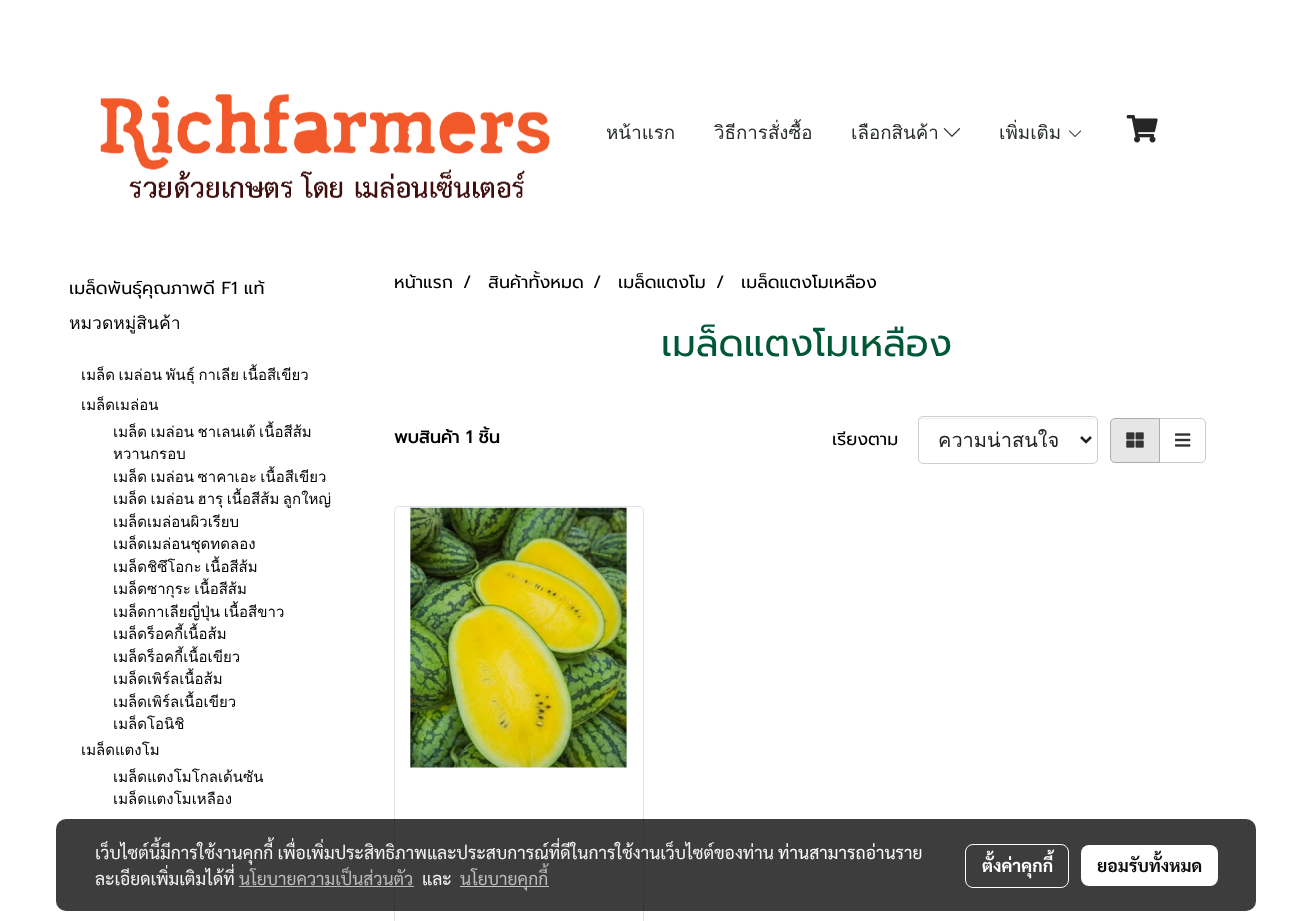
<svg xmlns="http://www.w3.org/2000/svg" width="1312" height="921">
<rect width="100%" height="100%" fill="#fff"/>
<image x="100" y="94" width="450" height="104" href="media/1.png"/>
<text x="606" y="139" style="font-family:Loma;font-size:18.75px;fill:#282c2d">หน้าแรก</text>
<text x="714" y="139" style="font-family:Loma;font-size:18.75px;fill:#282c2d">วิธีการสั่งซื้อ</text>
<text x="851" y="139" style="font-family:Loma;font-size:18.75px;fill:#282c2d">เลือกสินค้า</text>
<image x="943" y="128" width="18" height="9" href="media/2.png"/>
<text x="999" y="139" style="font-family:Loma;font-size:18.75px;fill:#282c2d">เพิ่มเติม</text>
<image x="1069" y="130" width="13" height="7" href="media/3.png"/>
<image x="1126" y="115" width="32" height="28" href="media/4.png"/>
<text x="69" y="294" style="font-family:Prompt;font-size:17.5px;fill:#000">เมล็ดพันธุ์คุณภาพดี F1 แท้</text>
<text x="69" y="329" style="font-family:Loma;font-size:17.5px;fill:#000">หมวดหมู่สินค้า</text>
<text x="81" y="380" word-spacing="-1.5" style="font-family:Loma;font-size:15px;fill:#000">เมล็ด เมล่อน พันธุ์ กาเลีย เนื้อสีเขียว</text>
<text x="81" y="410" style="font-family:Loma;font-size:15px;fill:#000">เมล็ดเมล่อน</text>
<text x="113" y="437" word-spacing="-1.5" style="font-family:Loma;font-size:15px;fill:#000">เมล็ด เมล่อน ชาเลนเต้ เนื้อสีส้ม</text>
<text x="113" y="459" style="font-family:Loma;font-size:15px;fill:#000">หวานกรอบ</text>
<text x="113" y="482" word-spacing="-1.5" style="font-family:Loma;font-size:15px;fill:#000">เมล็ด เมล่อน ซาคาเอะ เนื้อสีเขียว</text>
<text x="113" y="504" word-spacing="-1.5" style="font-family:Loma;font-size:15px;fill:#000">เมล็ด เมล่อน ฮารุ เนื้อสีส้ม ลูกใหญ่</text>
<text x="113" y="527" style="font-family:Loma;font-size:15px;fill:#000">เมล็ดเมล่อนผิวเรียบ</text>
<text x="113" y="549" style="font-family:Loma;font-size:15px;fill:#000">เมล็ดเมล่อนชุดทดลอง</text>
<text x="113" y="572" word-spacing="-1.5" style="font-family:Loma;font-size:15px;fill:#000">เมล็ดชิซึโอกะ เนื้อสีส้ม</text>
<text x="113" y="594" word-spacing="-1.5" style="font-family:Loma;font-size:15px;fill:#000">เมล็ดซากุระ เนื้อสีส้ม</text>
<text x="113" y="617" word-spacing="-1.5" style="font-family:Loma;font-size:15px;fill:#000">เมล็ดกาเลียญี่ปุ่น เนื้อสีขาว</text>
<text x="113" y="639" style="font-family:Loma;font-size:15px;fill:#000">เมล็ดร็อคกี้เนื้อส้ม</text>
<text x="113" y="662" style="font-family:Loma;font-size:15px;fill:#000">เมล็ดร็อคกี้เนื้อเขียว</text>
<text x="113" y="684" style="font-family:Loma;font-size:15px;fill:#000">เมล็ดเพิร์ลเนื้อส้ม</text>
<text x="113" y="707" style="font-family:Loma;font-size:15px;fill:#000">เมล็ดเพิร์ลเนื้อเขียว</text>
<text x="113" y="729" style="font-family:Loma;font-size:15px;fill:#000">เมล็ดโอนิชิ</text>
<text x="81" y="755" style="font-family:Loma;font-size:15px;fill:#000">เมล็ดแตงโม</text>
<text x="113" y="782" style="font-family:Loma;font-size:15px;fill:#000">เมล็ดแตงโมโกลเด้นซัน</text>
<text x="113" y="804" style="font-family:Loma;font-size:15px;fill:#000">เมล็ดแตงโมเหลือง</text>
<text x="394" y="288" style="font-family:Prompt;font-size:17.5px;fill:#000">หน้าแรก</text>
<text x="463" y="288" style="font-family:Prompt;font-size:17.5px;fill:#000">/</text>
<text x="488" y="288" style="font-family:Prompt;font-size:17.5px;fill:#000">สินค้าทั้งหมด</text>
<text x="593" y="288" style="font-family:Prompt;font-size:17.5px;fill:#000">/</text>
<text x="618" y="288" style="font-family:Prompt;font-size:17.5px;fill:#000">เมล็ดแตงโม</text>
<text x="716" y="288" style="font-family:Prompt;font-size:17.5px;fill:#000">/</text>
<text x="741" y="288" style="font-family:Prompt;font-size:17.5px;fill:#000">เมล็ดแตงโมเหลือง</text>
<text x="661" y="356" style="font-family:Prompt;font-size:37.5px;fill:#005837">เมล็ดแตงโมเหลือง</text>
<text x="394" y="443" style="font-family:Prompt;font-size:17.5px;font-weight:bold;fill:#000">พบสินค้า 1 ชิ้น</text>
<text x="832" y="445" style="font-family:Prompt;font-size:17.5px;fill:#000">เรียงตาม</text>
<path d="M922 419h172l2 1l-1-1l-3-1h-171l-1 2z" fill="#ececec"/>
<rect x="918.5" y="416.5" width="179" height="47" rx="4.5" fill="none" stroke="#cdced2"/>
<path d="M1081 437l5 5l5-5" fill="none" stroke="#212121" stroke-width="2.5"/>
<text x="938" y="447" style="font-family:Loma;font-size:20px;fill:#212121">ความน่าสนใจ</text>
<path d="M1159.5 418.5h41.5c2.5 0 4.5 2 4.5 4.5v35c0 2.5-2 4.5-4.5 4.5h-41.5z" fill="none" stroke="#ccc"/>
<path d="M1115 418.5h44.5v44h-44.5c-2.5 0-4.5-2-4.5-4.5v-35c0-2.5 2-4.5 4.5-4.5z" fill="#e6e6e6" stroke="#adadad"/>
<image x="1126" y="432" width="18" height="16" href="media/5.png"/>
<image x="1175" y="433" width="16" height="14" href="media/6.png"/>
<rect x="394.5" y="506.5" width="249" height="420" rx="4.5" fill="none" stroke="#dee2e6"/>
<image x="410" y="507" width="217" height="261" href="media/7.png"/>
<rect x="56" y="819" width="1200" height="92" rx="10" fill="#000000c2"/>
<text x="95" y="859" style="font-family:Sarabun;font-size:17.5px;fill:#f5f5f5">เว็บไซต์นี้มีการใช้งานคุกกี้ เพื่อเพิ่มประสิทธิภาพและประสบการณ์ที่ดีในการใช้งานเว็บไซต์ของท่าน</text>
<text x="778" y="859" style="font-family:Sarabun;font-size:17.5px;fill:#fff">ท่านสามารถอ่านราย</text>
<text x="95" y="885" style="font-family:Sarabun;font-size:17.5px;fill:#f5f5f5">ละเอียดเพิ่มเติมได้ที่</text>
<text x="239" y="885" style="font-family:Sarabun;font-size:17.5px;fill:#bbb">นโยบายความเป็นส่วนตัว</text>
<rect x="239" y="886" width="175" height="1" fill="#c2c2c2f2"/>
<text x="422" y="885" style="font-family:Sarabun;font-size:17.5px;fill:#f5f5f5">และ</text>
<rect x="460" y="886" width="89" height="1" fill="#c5c5c5"/>
<text x="460" y="885" style="font-family:Sarabun;font-size:17.5px;fill:#bbb">นโยบายคุกกี้</text>
<rect x="965.5" y="844.5" width="103" height="43" rx="7.5" fill="none" stroke="#fff"/>
<text x="982" y="872" style="font-family:Sarabun;font-size:17.5px;font-weight:bold;fill:#fff">ตั้งค่าคุกกี้</text>
<rect x="1081" y="845" width="137" height="41" rx="8" fill="#fff"/>
<text x="1097" y="872" style="font-family:Sarabun;font-size:17.5px;font-weight:bold;fill:#0d0d0d">ยอมรับทั้งหมด</text>
</svg>
